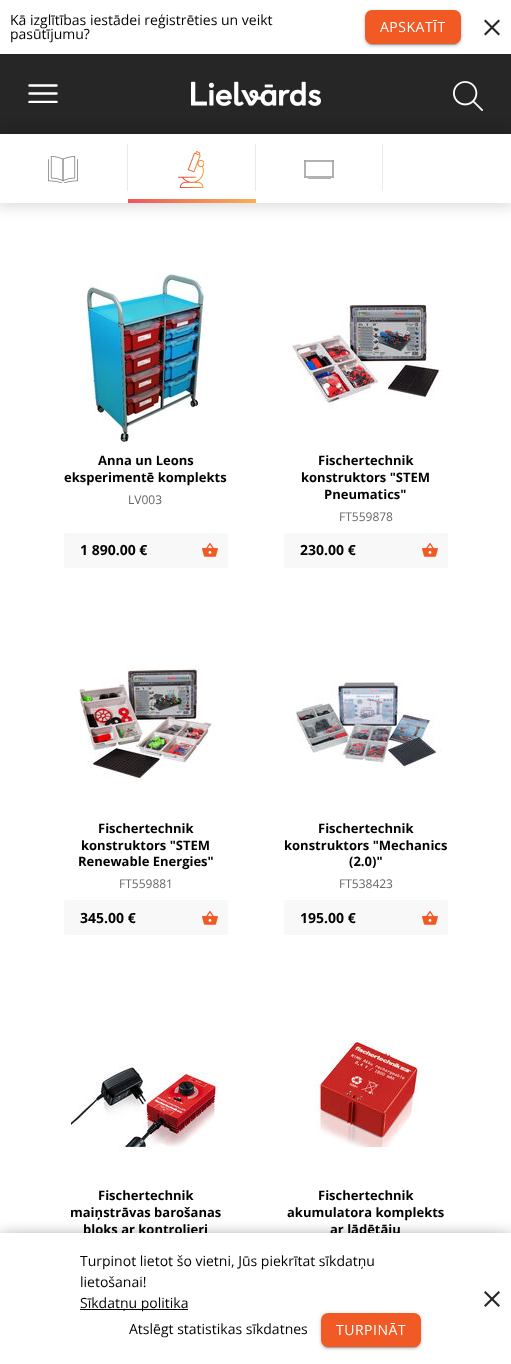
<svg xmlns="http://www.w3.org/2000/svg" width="511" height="1364">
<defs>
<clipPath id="clip1"><rect x="28" y="84" width="30" height="19"/></clipPath>
<clipPath id="clip2"><path d="M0 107h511v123h-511zm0 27h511v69h-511z" clip-rule="evenodd"/></clipPath>
<linearGradient id="g1" gradientUnits="userSpaceOnUse" x1="128" y1="201" x2="256" y2="201"><stop offset="0" stop-color="#f0565b"/><stop offset="0.5" stop-color="#f48459"/><stop offset="1" stop-color="#f9ae57"/></linearGradient>
</defs>
<rect width="100%" height="100%" fill="#fff"/>
<text x="10" y="25" style="font-family:Open Sans;font-size:14px;fill:#000">Kā izglītības iestādei reģistrēties un veikt</text>
<rect x="367" y="15" width="92" height="30" rx="5" fill="#00000033" filter="blur(0.5px)"/>
<rect x="365" y="11" width="96" height="34" rx="7" fill="#0000001f" filter="blur(2.5px)"/>
<rect x="365" y="12" width="96" height="34" rx="7" fill="#00000024" filter="blur(1px)"/>
<rect x="365" y="10" width="96" height="34" rx="7" fill="#f15a24"/>
<text x="380" y="32" style="font-family:Open Sans;font-size:14px;letter-spacing:0.5px;fill:#fff">APSKATĪT</text>
<text x="10" y="39" style="font-family:Open Sans;font-size:14px;fill:#000">pasūtījumu?</text>
<path d="M498.5 19.5l1.5 1.5l-14.5 14.5l-1.5-1.5z" fill="#262626"/>
<path d="M484 21l1.5-1.5l14.5 14.5l-1.5 1.5z" fill="#262626"/>
<rect y="54" width="511" height="80" fill="#262626"/>
<path d="M29.5 85.5h27m-27 8h27" fill="none" stroke="#fff" stroke-width="2.5" stroke-linecap="round"/>
<g clip-path="url(#clip1)">
<path d="M29.5 102h27" fill="none" stroke="#fff" stroke-width="2.5" stroke-linecap="round"/>
</g>
<image x="191" y="81" width="130" height="25" href="media/1.png"/>
<g clip-path="url(#clip2)">
<rect x="-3" y="131" width="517" height="75" fill="#00000026" filter="blur(7.5px)"/>
</g>
<image x="453" y="81" width="30" height="30" href="media/2.png"/>
<rect x="127" y="144" width="1" height="47" fill="#eaeaea"/>
<image x="48" y="156" width="30" height="27" href="media/3.png"/>
<rect x="128" y="199" width="128" height="4" fill="url(#g1)"/>
<rect x="255" y="144" width="1" height="47" fill="#eaeaea"/>
<image x="178" y="151" width="26" height="37" href="media/4.png"/>
<rect x="382" y="144" width="1" height="47" fill="#eaeaea"/>
<image x="304" y="160" width="30" height="19" href="media/5.png"/>
<image x="86" y="273" width="121" height="171" href="media/6.png"/>
<text x="98" y="465" style="font-family:Open Sans;font-size:13px;font-weight:bold;fill:#000">Anna un Leons</text>
<text x="64" y="482" style="font-family:Open Sans;font-size:13px;font-weight:bold;fill:#000">eksperimentē komplekts</text>
<text x="128" y="504" style="font-family:Open Sans;font-size:12px;fill:#666">LV003</text>
<rect x="64" y="533" width="164" height="35" rx="3" fill="#f8f8f8"/>
<image x="202" y="543" width="16" height="14" href="media/7.png"/>
<text x="80" y="555" style="font-family:Open Sans;font-size:14px;font-weight:bold;fill:#000">1 890.00 €</text>
<image x="291" y="304" width="150" height="105" href="media/8.png"/>
<text x="318" y="465" style="font-family:Open Sans;font-size:13px;font-weight:bold;fill:#000">Fischertechnik</text>
<text x="301" y="482" style="font-family:Open Sans;font-size:13px;font-weight:bold;fill:#000">konstruktors "STEM</text>
<text x="324" y="499" style="font-family:Open Sans;font-size:13px;font-weight:bold;fill:#000">Pneumatics"</text>
<text x="339" y="521" style="font-family:Open Sans;font-size:12px;fill:#666">FT559878</text>
<rect x="284" y="533" width="164" height="35" rx="3" fill="#f8f8f8"/>
<image x="422" y="543" width="16" height="14" href="media/7.png"/>
<text x="300" y="555" style="font-family:Open Sans;font-size:14px;font-weight:bold;fill:#000">230.00 €</text>
<image x="79" y="665" width="136" height="120" href="media/9.png"/>
<text x="98" y="833" style="font-family:Open Sans;font-size:13px;font-weight:bold;fill:#000">Fischertechnik</text>
<text x="81" y="850" style="font-family:Open Sans;font-size:13px;font-weight:bold;fill:#000">konstruktors "STEM</text>
<text x="78" y="866" style="font-family:Open Sans;font-size:13px;font-weight:bold;fill:#000">Renewable Energies"</text>
<text x="119" y="888" style="font-family:Open Sans;font-size:12px;fill:#666">FT559881</text>
<rect x="64" y="900" width="164" height="35" rx="3" fill="#f8f8f8"/>
<image x="202" y="911" width="16" height="14" href="media/7.png"/>
<text x="80" y="923" style="font-family:Open Sans;font-size:14px;font-weight:bold;fill:#000">345.00 €</text>
<image x="292" y="681" width="149" height="88" href="media/10.png"/>
<text x="318" y="833" style="font-family:Open Sans;font-size:13px;font-weight:bold;fill:#000">Fischertechnik</text>
<text x="284" y="850" style="font-family:Open Sans;font-size:13px;font-weight:bold;fill:#000">konstruktors "Mechanics</text>
<text x="349" y="866" style="font-family:Open Sans;font-size:13px;font-weight:bold;fill:#000">(2.0)"</text>
<text x="339" y="888" style="font-family:Open Sans;font-size:12px;fill:#666">FT538423</text>
<rect x="284" y="900" width="164" height="35" rx="3" fill="#f8f8f8"/>
<image x="422" y="911" width="16" height="14" href="media/7.png"/>
<text x="300" y="923" style="font-family:Open Sans;font-size:14px;font-weight:bold;fill:#000">195.00 €</text>
<image x="71" y="1064" width="149" height="88" href="media/11.png"/>
<text x="98" y="1200" style="font-family:Open Sans;font-size:13px;font-weight:bold;fill:#000">Fischertechnik</text>
<text x="70" y="1217" style="font-family:Open Sans;font-size:13px;font-weight:bold;fill:#000">maiņstrāvas barošanas</text>
<text x="83" y="1234" style="font-family:Open Sans;font-size:13px;font-weight:bold;fill:#000">bloks ar kontrolieri</text>
<image x="315" y="1040" width="104" height="110" href="media/12.png"/>
<text x="318" y="1200" style="font-family:Open Sans;font-size:13px;font-weight:bold;fill:#000">Fischertechnik</text>
<text x="287" y="1217" style="font-family:Open Sans;font-size:13px;font-weight:bold;fill:#000">akumulatora komplekts</text>
<text x="330" y="1234" style="font-family:Open Sans;font-size:13px;font-weight:bold;fill:#000">ar lādētāju</text>
<rect y="1243" width="511" height="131" fill="#000" filter="blur(10px)"/>
<rect y="1233" width="511" height="131" fill="#fff"/>
<text x="80" y="1266" style="font-family:Open Sans;font-size:14px;fill:#000">Turpinot lietot šo vietni, Jūs piekrītat sīkdatņu</text>
<text x="80" y="1287" style="font-family:Open Sans;font-size:14px;fill:#000">lietošanai!</text>
<rect x="80" y="1309" width="108" height="1" fill="#000"/>
<text x="80" y="1308" style="font-family:Open Sans;font-size:14px;fill:#000">Sīkdatņu politika</text>
<text x="129" y="1334" style="font-family:Open Sans;font-size:14px;fill:#000">Atslēgt statistikas sīkdatnes</text>
<rect x="323" y="1318" width="96" height="30" rx="5" fill="#00000033" filter="blur(0.5px)"/>
<rect x="321" y="1314" width="100" height="34" rx="7" fill="#0000001f" filter="blur(2.5px)"/>
<rect x="321" y="1315" width="100" height="34" rx="7" fill="#00000024" filter="blur(1px)"/>
<rect x="321" y="1313" width="100" height="34" rx="7" fill="#f15a24"/>
<text x="336" y="1335" style="font-family:Open Sans;font-size:14px;letter-spacing:0.5px;fill:#fff">TURPINĀT</text>
<path d="M498.5 1291l1.5 1.5l-14.5 14.5l-1.5-1.5z" fill="#262626"/>
<path d="M484 1292.5l1.5-1.5l14.5 14.5l-1.5 1.5z" fill="#262626"/>
</svg>
